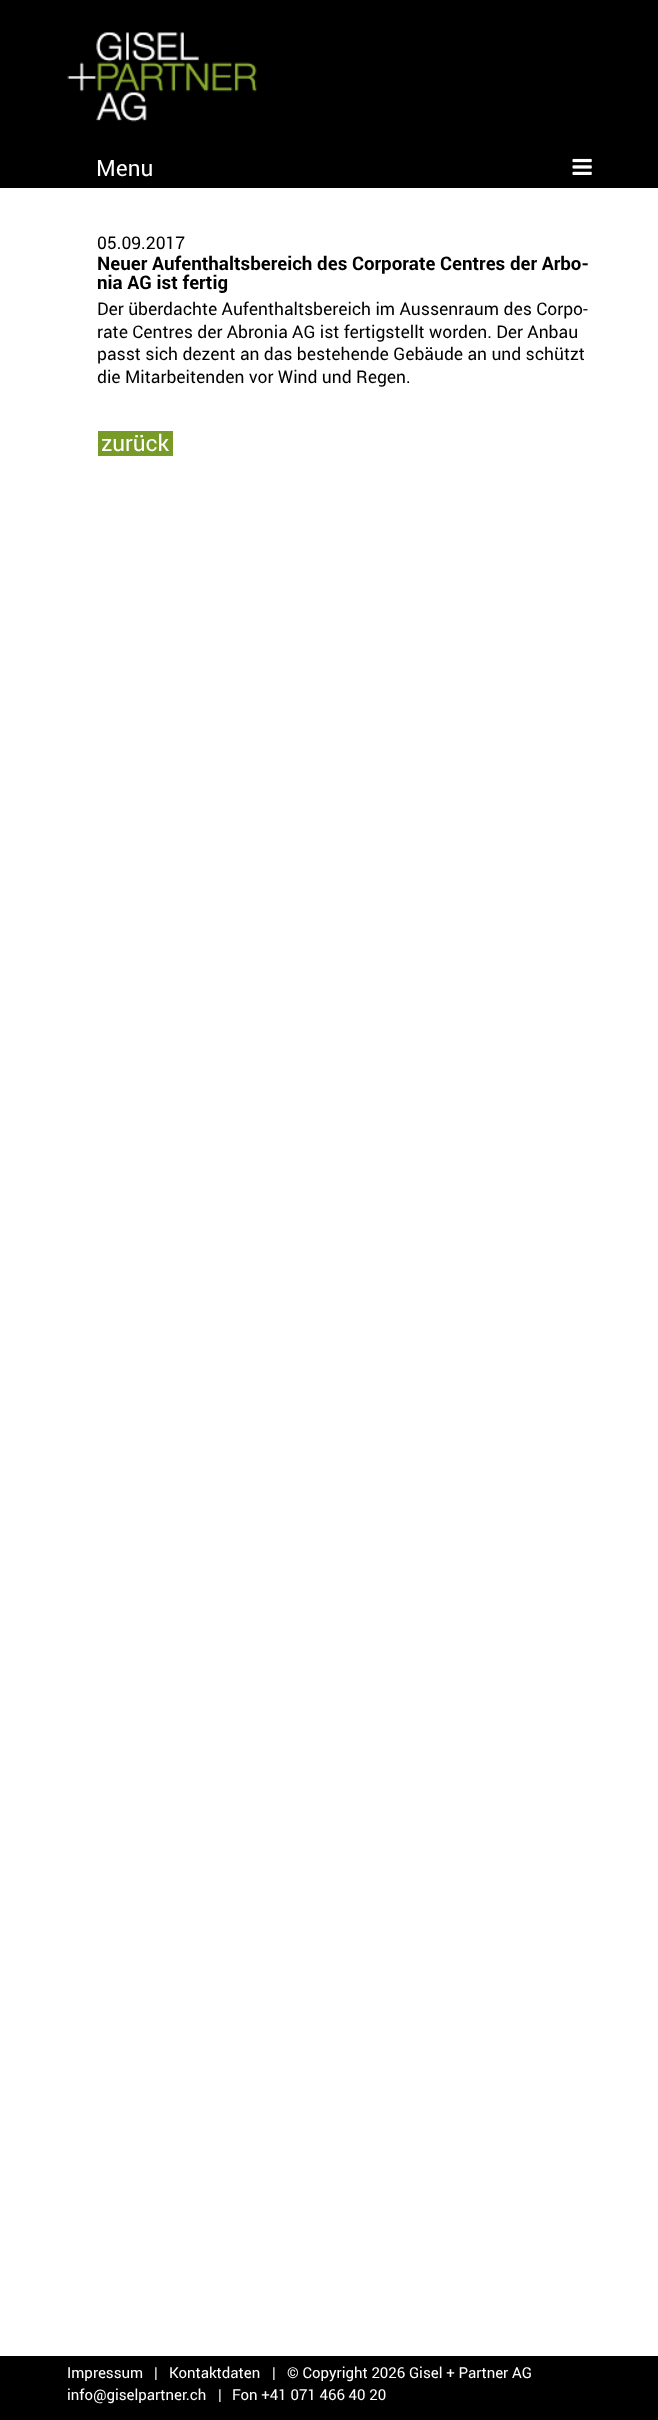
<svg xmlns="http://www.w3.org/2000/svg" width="658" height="2420">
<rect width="100%" height="100%" fill="#fff"/>
<rect width="658" height="188" fill="#000"/>
<image x="67" y="32" width="190" height="90" href="media/1.png"/>
<text x="96" y="176" style="font-family:roboto;font-size:22.5px;fill:#fff">Menu</text>
<image x="572" y="158" width="20" height="17" href="media/2.png"/>
<text x="97" y="249" style="font-family:roboto;font-size:17.5px;fill:#000">05.09.2017</text>
<text x="97" y="270" style="font-family:roboto;font-size:18.75px;font-weight:bold;fill:#000">Neuer Aufenthaltsbereich des Corporate Centres der Arbo-</text>
<text x="97" y="289" style="font-family:roboto;font-size:18.75px;font-weight:bold;fill:#000">nia AG ist fertig</text>
<text x="97" y="315" style="font-family:roboto;font-size:17.5px;fill:#000">Der überdachte Aufenthaltsbereich im Aussenraum des Corpo-</text>
<text x="97" y="338" style="font-family:roboto;font-size:17.5px;fill:#000">rate Centres der Abronia AG ist fertigstellt worden. Der Anbau</text>
<text x="97" y="360" style="font-family:roboto;font-size:17.5px;fill:#000">passt sich dezent an das bestehende Gebäude an und schützt</text>
<text x="97" y="383" style="font-family:roboto;font-size:17.5px;fill:#000">die Mitarbeitenden vor Wind und Regen.</text>
<rect x="98" y="431" width="75" height="25" fill="#789b28"/>
<text x="101" y="451" style="font-family:roboto;font-size:22.5px;fill:#fff">zurück</text>
<rect y="2356" width="658" height="64" fill="#000"/>
<text x="67" y="2378" style="font-family:roboto;font-size:15px;fill:#fff">Impressum</text>
<text x="154" y="2378" style="font-family:roboto;font-size:15px;fill:#fff">|</text>
<text x="169" y="2378" style="font-family:roboto;font-size:15px;fill:#fff">Kontaktdaten</text>
<text x="272" y="2378" style="font-family:roboto;font-size:15px;fill:#fff">|</text>
<text x="287" y="2378" style="font-family:roboto;font-size:15px;fill:#fff">© Copyright 2026 Gisel + Partner AG</text>
<text x="67" y="2400" style="font-family:roboto;font-size:15px;fill:#fff">info@giselpartner.ch</text>
<text x="218" y="2400" style="font-family:roboto;font-size:15px;fill:#fff">|</text>
<text x="232" y="2400" style="font-family:roboto;font-size:15px;fill:#fff">Fon +41 071 466 40 20</text>
</svg>
